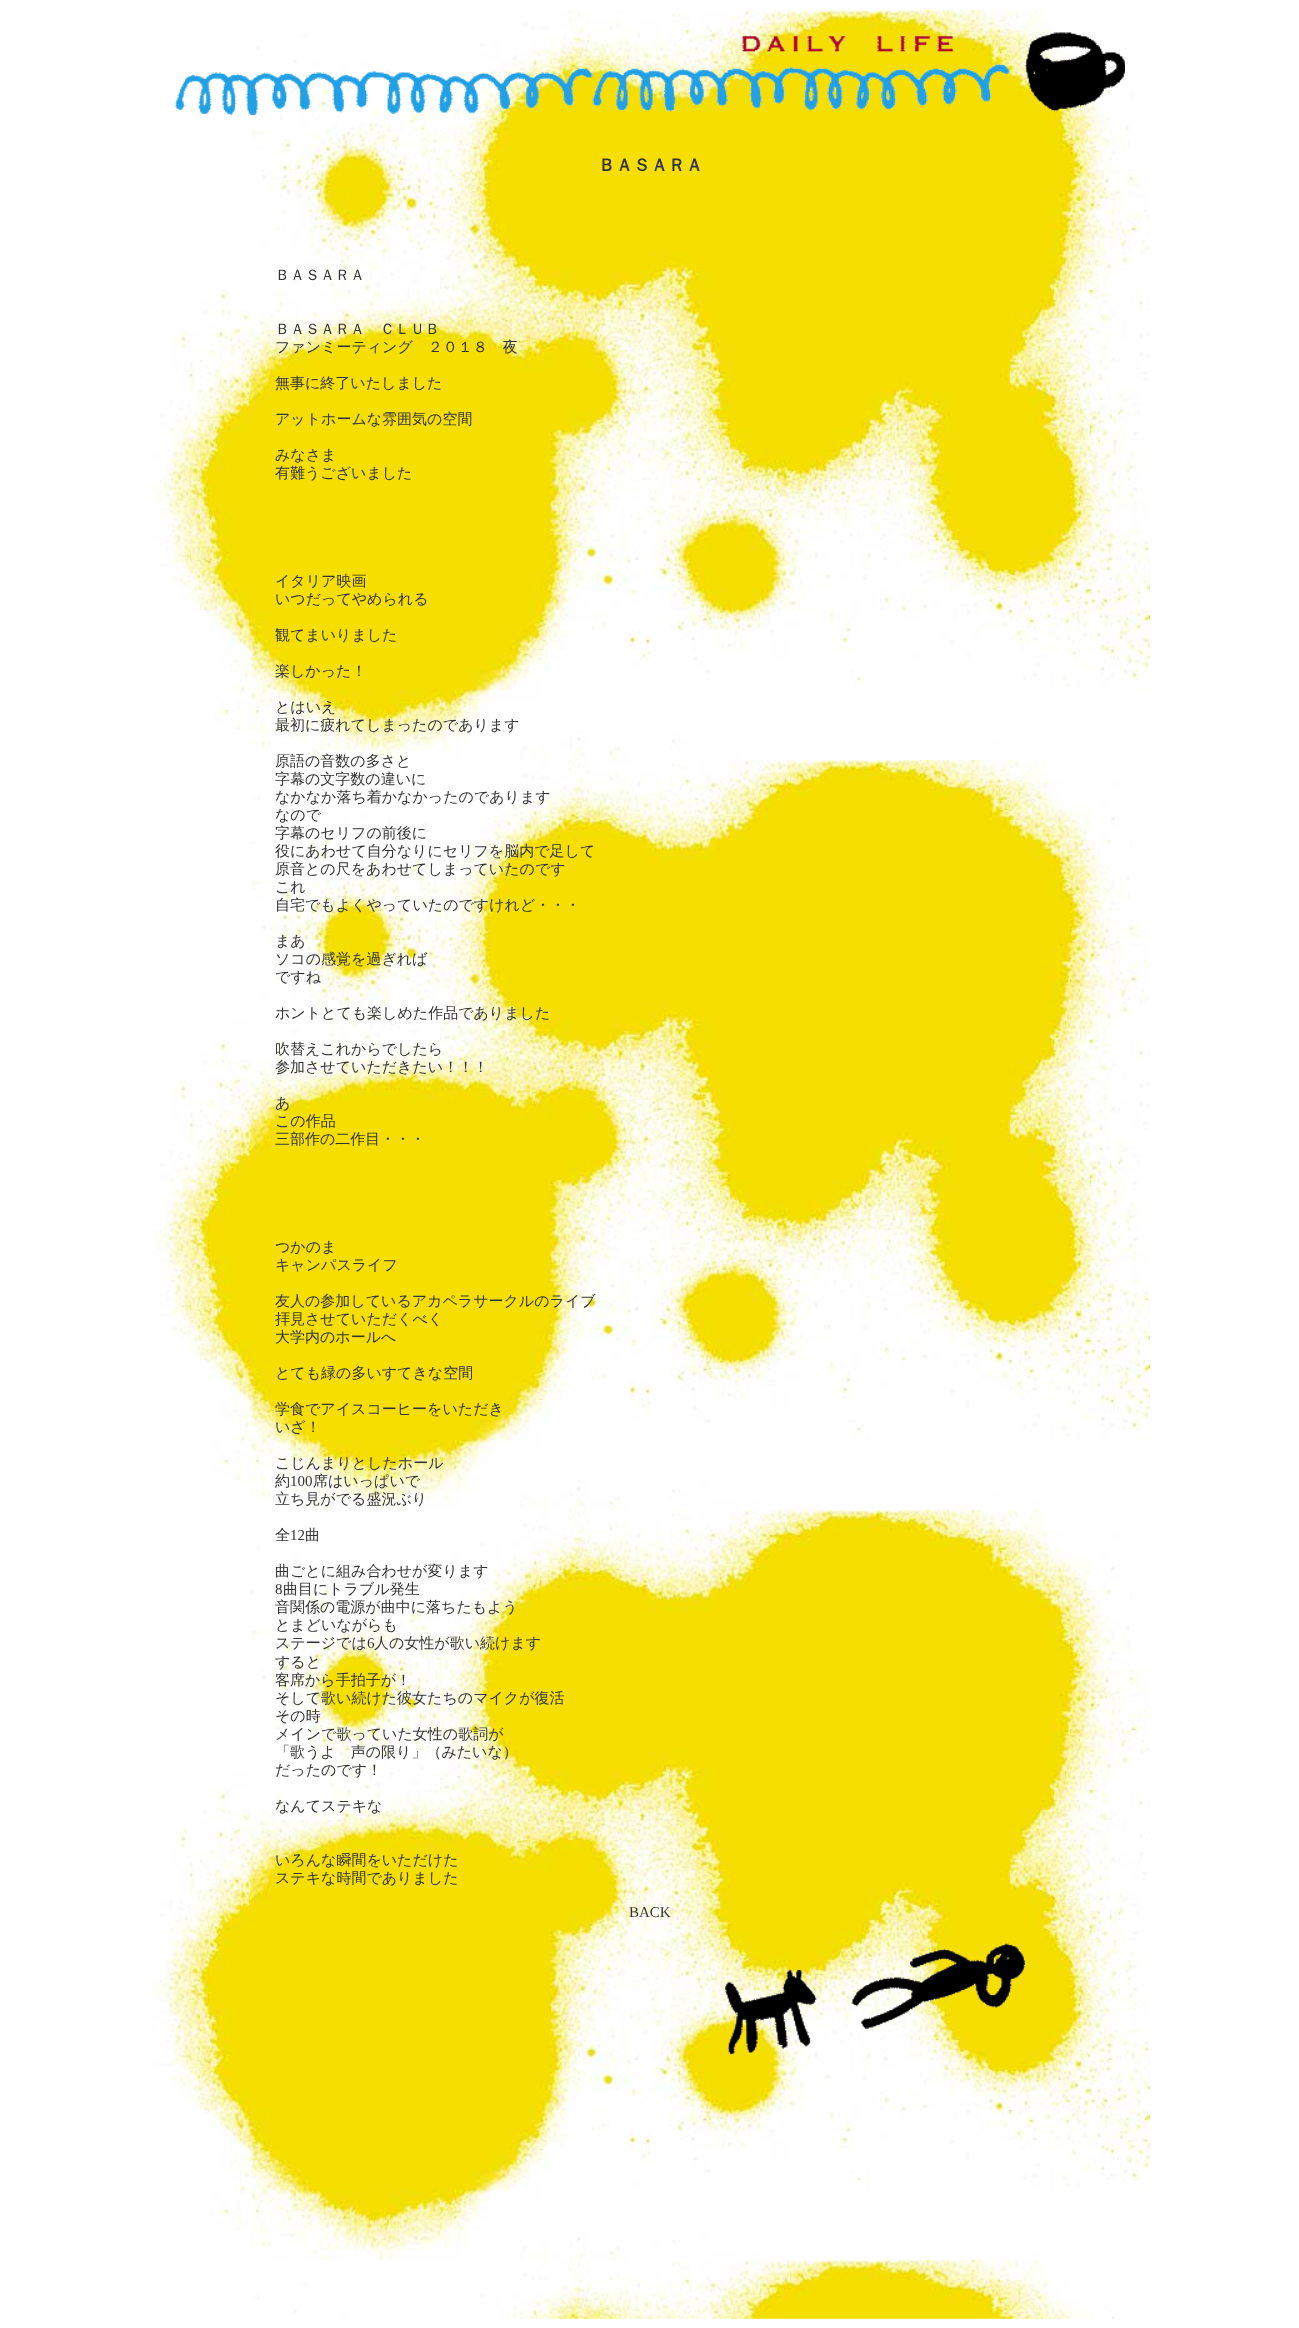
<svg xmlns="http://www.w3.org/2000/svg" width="1299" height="2328">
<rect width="100%" height="100%" fill="#fff"/>
<image x="150" y="10" width="1000" height="2309" href="media/1.png"/>
<image x="175" y="32" width="950" height="83" href="media/2.png"/>
<text x="598" y="171" style="font-family:WenQuanYi Zen Hei;font-size:17.5px;font-weight:bold;fill:#333">ＢＡＳＡＲＡ</text>
<text x="275" y="280" style="font-family:WenQuanYi Zen Hei;font-size:15px;font-weight:500;fill:#333">ＢＡＳＡＲＡ</text>
<text x="275" y="334" style="font-family:WenQuanYi Zen Hei;font-size:15px;font-weight:500;fill:#333">ＢＡＳＡＲＡ　ＣＬＵＢ</text>
<text x="275" y="352" style="font-family:WenQuanYi Zen Hei;font-size:15px;font-weight:500;fill:#333">ファンミーティング　２０１８　夜</text>
<text x="275" y="388" style="font-family:WenQuanYi Zen Hei;font-size:15px;font-weight:500;fill:#333">無事に終了いたしました</text>
<text x="275" y="424" style="font-family:WenQuanYi Zen Hei;font-size:15px;font-weight:500;fill:#333">アットホームな雰囲気の空間</text>
<text x="275" y="460" style="font-family:WenQuanYi Zen Hei;font-size:15px;font-weight:500;fill:#333">みなさま</text>
<text x="275" y="478" style="font-family:WenQuanYi Zen Hei;font-size:15px;font-weight:500;fill:#333">有難うございました</text>
<text x="275" y="586" style="font-family:WenQuanYi Zen Hei;font-size:15px;font-weight:500;fill:#333">イタリア映画</text>
<text x="275" y="604" style="font-family:WenQuanYi Zen Hei;font-size:15px;font-weight:500;fill:#333">いつだってやめられる</text>
<text x="275" y="640" style="font-family:WenQuanYi Zen Hei;font-size:15px;font-weight:500;fill:#333">観てまいりました</text>
<text x="275" y="676" style="font-family:WenQuanYi Zen Hei;font-size:15px;font-weight:500;fill:#333">楽しかった！</text>
<text x="275" y="712" style="font-family:WenQuanYi Zen Hei;font-size:15px;font-weight:500;fill:#333">とはいえ</text>
<text x="275" y="730" style="font-family:WenQuanYi Zen Hei;font-size:15px;font-weight:500;fill:#333">最初に疲れてしまったのであります</text>
<text x="275" y="766" style="font-family:WenQuanYi Zen Hei;font-size:15px;font-weight:500;fill:#333">原語の音数の多さと</text>
<text x="275" y="784" style="font-family:WenQuanYi Zen Hei;font-size:15px;font-weight:500;fill:#333">字幕の文字数の違いに</text>
<text x="275" y="802" style="font-family:WenQuanYi Zen Hei;font-size:15px;font-weight:500;fill:#333">なかなか落ち着かなかったのであります</text>
<text x="275" y="820" style="font-family:WenQuanYi Zen Hei;font-size:15px;font-weight:500;fill:#333">なので</text>
<text x="275" y="838" style="font-family:WenQuanYi Zen Hei;font-size:15px;font-weight:500;fill:#333">字幕のセリフの前後に</text>
<text x="275" y="856" style="font-family:WenQuanYi Zen Hei;font-size:15px;font-weight:500;fill:#333">役にあわせて自分なりにセリフを脳内で足して</text>
<text x="275" y="874" style="font-family:WenQuanYi Zen Hei;font-size:15px;font-weight:500;fill:#333">原音との尺をあわせてしまっていたのです</text>
<text x="275" y="892" style="font-family:WenQuanYi Zen Hei;font-size:15px;font-weight:500;fill:#333">これ</text>
<text x="275" y="910" style="font-family:WenQuanYi Zen Hei;font-size:15px;font-weight:500;fill:#333">自宅でもよくやっていたのですけれど・・・</text>
<text x="275" y="946" style="font-family:WenQuanYi Zen Hei;font-size:15px;font-weight:500;fill:#333">まあ</text>
<text x="275" y="964" style="font-family:WenQuanYi Zen Hei;font-size:15px;font-weight:500;fill:#333">ソコの感覚を過ぎれば</text>
<text x="275" y="982" style="font-family:WenQuanYi Zen Hei;font-size:15px;font-weight:500;fill:#333">ですね</text>
<text x="275" y="1018" style="font-family:WenQuanYi Zen Hei;font-size:15px;font-weight:500;fill:#333">ホントとても楽しめた作品でありました</text>
<text x="275" y="1054" style="font-family:WenQuanYi Zen Hei;font-size:15px;font-weight:500;fill:#333">吹替えこれからでしたら</text>
<text x="275" y="1072" style="font-family:WenQuanYi Zen Hei;font-size:15px;font-weight:500;fill:#333">参加させていただきたい！！！</text>
<text x="275" y="1108" style="font-family:WenQuanYi Zen Hei;font-size:15px;font-weight:500;fill:#333">あ</text>
<text x="275" y="1126" style="font-family:WenQuanYi Zen Hei;font-size:15px;font-weight:500;fill:#333">この作品</text>
<text x="275" y="1144" style="font-family:WenQuanYi Zen Hei;font-size:15px;font-weight:500;fill:#333">三部作の二作目・・・</text>
<text x="275" y="1252" style="font-family:WenQuanYi Zen Hei;font-size:15px;font-weight:500;fill:#333">つかのま</text>
<text x="275" y="1270" style="font-family:WenQuanYi Zen Hei;font-size:15px;font-weight:500;fill:#333">キャンパスライフ</text>
<text x="275" y="1306" style="font-family:WenQuanYi Zen Hei;font-size:15px;font-weight:500;fill:#333">友人の参加しているアカペラサークルのライブ</text>
<text x="275" y="1324" style="font-family:WenQuanYi Zen Hei;font-size:15px;font-weight:500;fill:#333">拝見させていただくべく</text>
<text x="275" y="1342" style="font-family:WenQuanYi Zen Hei;font-size:15px;font-weight:500;fill:#333">大学内のホールへ</text>
<text x="275" y="1378" style="font-family:WenQuanYi Zen Hei;font-size:15px;font-weight:500;fill:#333">とても緑の多いすてきな空間</text>
<text x="275" y="1414" style="font-family:WenQuanYi Zen Hei;font-size:15px;font-weight:500;fill:#333">学食でアイスコーヒーをいただき</text>
<text x="275" y="1432" style="font-family:WenQuanYi Zen Hei;font-size:15px;font-weight:500;fill:#333">いざ！</text>
<text x="275" y="1468" style="font-family:WenQuanYi Zen Hei;font-size:15px;font-weight:500;fill:#333">こじんまりとしたホール</text>
<text x="275" y="1486" style="font-family:WenQuanYi Zen Hei;font-size:15px;font-weight:500;fill:#333">約</text>
<text x="290" y="1486" style="font-family:Liberation Serif;font-size:15px;fill:#333">100</text>
<text x="313" y="1486" style="font-family:WenQuanYi Zen Hei;font-size:15px;font-weight:500;fill:#333">席はいっぱいで</text>
<text x="275" y="1504" style="font-family:WenQuanYi Zen Hei;font-size:15px;font-weight:500;fill:#333">立ち見がでる盛況ぶり</text>
<text x="275" y="1540" style="font-family:WenQuanYi Zen Hei;font-size:15px;font-weight:500;fill:#333">全</text>
<text x="290" y="1540" style="font-family:Liberation Serif;font-size:15px;fill:#333">12</text>
<text x="305" y="1540" style="font-family:WenQuanYi Zen Hei;font-size:15px;font-weight:500;fill:#333">曲</text>
<text x="275" y="1576" style="font-family:WenQuanYi Zen Hei;font-size:15px;font-weight:500;fill:#333">曲ごとに組み合わせが変ります</text>
<text x="275" y="1594" style="font-family:Liberation Serif;font-size:15px;fill:#333">8</text>
<text x="283" y="1594" style="font-family:WenQuanYi Zen Hei;font-size:15px;font-weight:500;fill:#333">曲目にトラブル発生</text>
<text x="275" y="1612" style="font-family:WenQuanYi Zen Hei;font-size:15px;font-weight:500;fill:#333">音関係の電源が曲中に落ちたもよう</text>
<text x="275" y="1630" style="font-family:WenQuanYi Zen Hei;font-size:15px;font-weight:500;fill:#333">とまどいながらも</text>
<text x="275" y="1648" style="font-family:WenQuanYi Zen Hei;font-size:15px;font-weight:500;fill:#333">ステージでは</text>
<text x="367" y="1648" style="font-family:Liberation Serif;font-size:15px;fill:#333">6</text>
<text x="374" y="1648" style="font-family:WenQuanYi Zen Hei;font-size:15px;font-weight:500;fill:#333">人の女性が歌い続けます</text>
<text x="275" y="1667" style="font-family:WenQuanYi Zen Hei;font-size:15px;font-weight:500;fill:#333">すると</text>
<text x="275" y="1685" style="font-family:WenQuanYi Zen Hei;font-size:15px;font-weight:500;fill:#333">客席から手拍子が！</text>
<text x="275" y="1703" style="font-family:WenQuanYi Zen Hei;font-size:15px;font-weight:500;fill:#333">そして歌い続けた彼女たちのマイクが復活</text>
<text x="275" y="1721" style="font-family:WenQuanYi Zen Hei;font-size:15px;font-weight:500;fill:#333">その時</text>
<text x="275" y="1739" style="font-family:WenQuanYi Zen Hei;font-size:15px;font-weight:500;fill:#333">メインで歌っていた女性の歌詞が</text>
<text x="275" y="1757" style="font-family:WenQuanYi Zen Hei;font-size:15px;font-weight:500;fill:#333">「歌うよ　声の限り」（みたいな）</text>
<text x="275" y="1775" style="font-family:WenQuanYi Zen Hei;font-size:15px;font-weight:500;fill:#333">だったのです！</text>
<text x="275" y="1811" style="font-family:WenQuanYi Zen Hei;font-size:15px;font-weight:500;fill:#333">なんてステキな</text>
<text x="275" y="1865" style="font-family:WenQuanYi Zen Hei;font-size:15px;font-weight:500;fill:#333">いろんな瞬間をいただけた</text>
<text x="275" y="1883" style="font-family:WenQuanYi Zen Hei;font-size:15px;font-weight:500;fill:#333">ステキな時間でありました</text>
<text x="629" y="1917" style="font-family:Liberation Serif;font-size:15px;fill:#333">BACK</text>
<image x="725" y="1943" width="300" height="112" href="media/3.png"/>
</svg>
